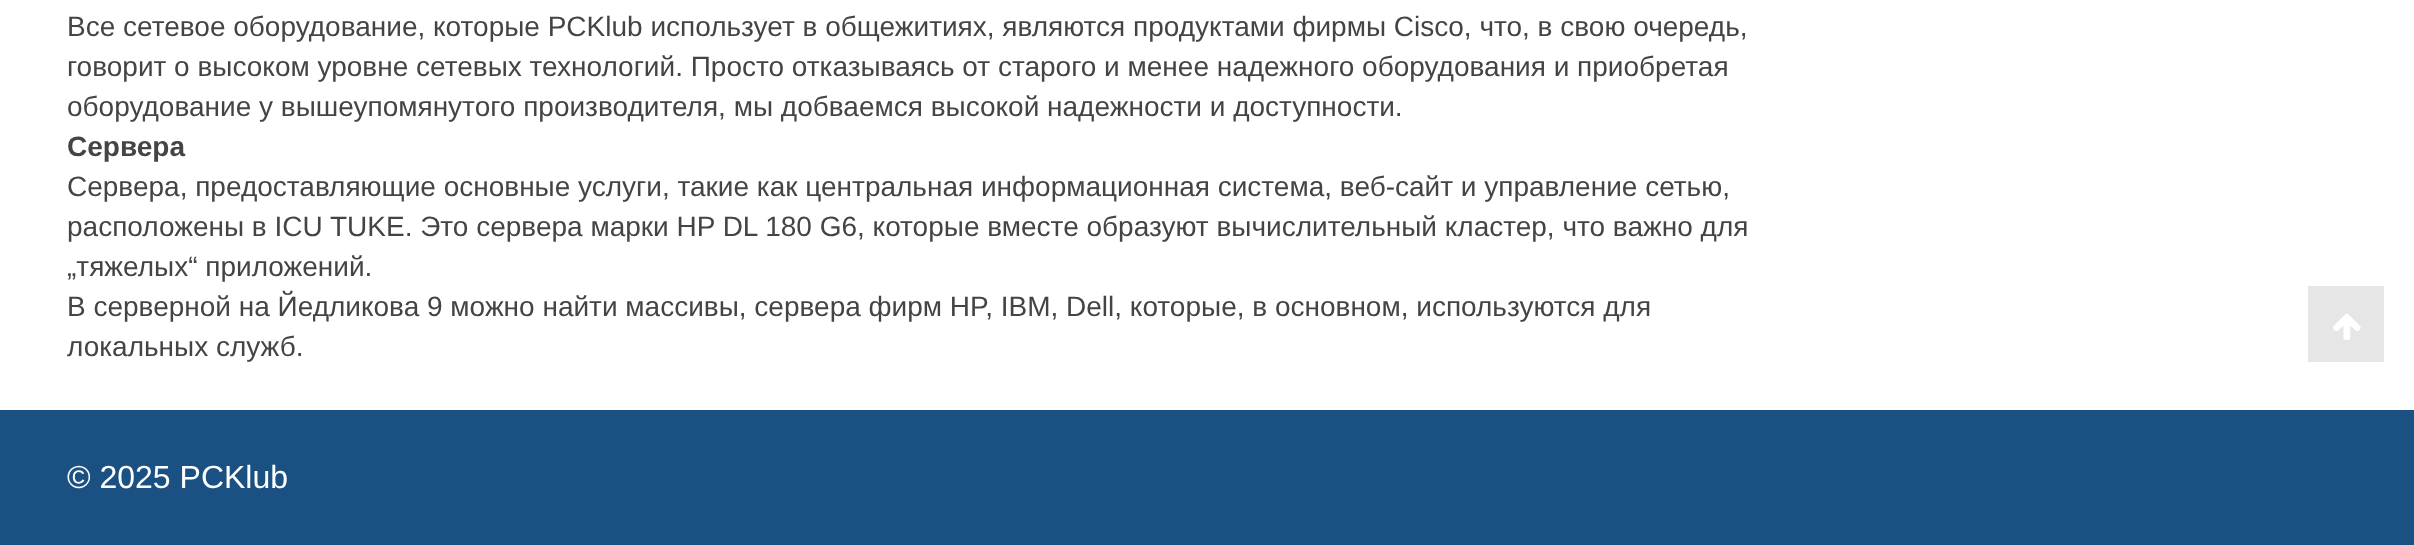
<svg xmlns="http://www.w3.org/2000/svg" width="2414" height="545">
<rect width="100%" height="100%" fill="#fff"/>
<text x="67" y="36" style="font-family:Liberation Sans;font-size:28px;fill:#444">Все сетевое оборудование, которые PCKlub использует в общежитиях, являются продуктами фирмы Cisco, что, в свою очередь,</text>
<text x="67" y="76" style="font-family:Liberation Sans;font-size:28px;fill:#444">говорит о высоком уровне сетевых технологий. Просто отказываясь от старого и менее надежного оборудования и приобретая</text>
<text x="67" y="116" style="font-family:Liberation Sans;font-size:28px;fill:#444">оборудование у вышеупомянутого производителя, мы добваемся высокой надежности и доступности.</text>
<text x="67" y="156" style="font-family:Liberation Sans;font-size:28px;font-weight:bold;fill:#444">Сервера</text>
<text x="67" y="196" style="font-family:Liberation Sans;font-size:28px;fill:#444">Сервера, предоставляющие основные услуги, такие как центральная информационная система, веб-сайт и управление сетью,</text>
<text x="67" y="236" style="font-family:Liberation Sans;font-size:28px;fill:#444">расположены в ICU TUKE. Это сервера марки HP DL 180 G6, которые вместе образуют вычислительный кластер, что важно для</text>
<text x="67" y="276" style="font-family:Liberation Sans;font-size:28px;fill:#444">„тяжелых“ приложений.</text>
<text x="67" y="316" style="font-family:Liberation Sans;font-size:28px;fill:#444">В серверной на Йедликова 9 можно найти массивы, сервера фирм HP, IBM, Dell, которые, в основном, используются для</text>
<text x="67" y="356" style="font-family:Liberation Sans;font-size:28px;fill:#444">локальных служб.</text>
<rect y="410" width="2414" height="135" fill="#1b5082"/>
<text x="67" y="488" style="font-family:Liberation Sans;font-size:32px;fill:#fff">© 2025 PCKlub</text>
<rect x="2308" y="286" width="76" height="76" fill="#e6e6e6"/>
<image x="2333" y="313" width="28" height="27" href="media/1.png"/>
</svg>
